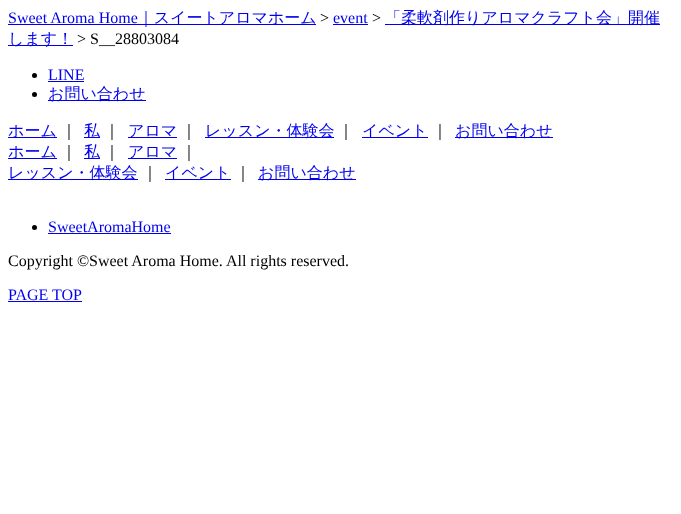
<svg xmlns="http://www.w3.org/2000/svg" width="681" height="514">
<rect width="100%" height="100%" fill="#fff"/>
<text x="8" y="23" style="font-family:Liberation Serif;font-size:16px;fill:#00e">Sweet Aroma Home</text>
<rect x="8" y="24" width="308" height="1" fill="#00e"/>
<text x="138" y="23" style="font-family:WenQuanYi Zen Hei;font-size:16px;font-weight:500;fill:#00e">｜スイートアロマホーム</text>
<text x="320" y="23" style="font-family:Liberation Serif;font-size:16px;fill:#000">&gt;</text>
<text x="333" y="23" style="font-family:Liberation Serif;font-size:16px;fill:#00e">event</text>
<rect x="333" y="24" width="35" height="1" fill="#00e"/>
<text x="372" y="23" style="font-family:Liberation Serif;font-size:16px;fill:#000">&gt;</text>
<rect x="385" y="24" width="275" height="1" fill="#00e"/>
<text x="385" y="23" style="font-family:WenQuanYi Zen Hei;font-size:16px;font-weight:500;fill:#00e">「柔軟剤作りアロマクラフト会」開催</text>
<rect x="8" y="45" width="65" height="1" fill="#00e"/>
<text x="8" y="44" style="font-family:WenQuanYi Zen Hei;font-size:16px;font-weight:500;fill:#00e">します！</text>
<text x="77" y="44" style="font-family:Liberation Serif;font-size:16px;fill:#000">&gt; S__28803084</text>
<circle cx="34.5" cy="75.5" r="2.5" fill="#000"/>
<text x="48" y="80" style="font-family:Liberation Serif;font-size:16px;fill:#00e">LINE</text>
<rect x="48" y="81" width="36" height="1" fill="#00e"/>
<circle cx="34.5" cy="94.5" r="2.5" fill="#000"/>
<rect x="48" y="100" width="98" height="1" fill="#00e"/>
<text x="48" y="99" style="font-family:WenQuanYi Zen Hei;font-size:16px;font-weight:500;fill:#00e">お問い合わせ</text>
<rect x="8" y="137" width="49" height="1" fill="#00e"/>
<text x="8" y="136" style="font-family:WenQuanYi Zen Hei;font-size:16px;font-weight:500;fill:#00e">ホーム</text>
<text x="61" y="136" style="font-family:WenQuanYi Zen Hei;font-size:16px;font-weight:500;fill:#000">｜</text>
<rect x="84" y="137" width="16" height="1" fill="#00e"/>
<text x="84" y="136" style="font-family:WenQuanYi Zen Hei;font-size:16px;font-weight:500;fill:#00e">私</text>
<text x="104" y="136" style="font-family:WenQuanYi Zen Hei;font-size:16px;font-weight:500;fill:#000">｜</text>
<rect x="128" y="137" width="49" height="1" fill="#00e"/>
<text x="128" y="136" style="font-family:WenQuanYi Zen Hei;font-size:16px;font-weight:500;fill:#00e">アロマ</text>
<text x="181" y="136" style="font-family:WenQuanYi Zen Hei;font-size:16px;font-weight:500;fill:#000">｜</text>
<rect x="205" y="137" width="129" height="1" fill="#00e"/>
<text x="205" y="136" style="font-family:WenQuanYi Zen Hei;font-size:16px;font-weight:500;fill:#00e">レッスン・体験会</text>
<text x="338" y="136" style="font-family:WenQuanYi Zen Hei;font-size:16px;font-weight:500;fill:#000">｜</text>
<rect x="362" y="137" width="66" height="1" fill="#00e"/>
<text x="362" y="136" style="font-family:WenQuanYi Zen Hei;font-size:16px;font-weight:500;fill:#00e">イベント</text>
<text x="432" y="136" style="font-family:WenQuanYi Zen Hei;font-size:16px;font-weight:500;fill:#000">｜</text>
<rect x="455" y="137" width="98" height="1" fill="#00e"/>
<text x="455" y="136" style="font-family:WenQuanYi Zen Hei;font-size:16px;font-weight:500;fill:#00e">お問い合わせ</text>
<rect x="8" y="158" width="49" height="1" fill="#00e"/>
<text x="8" y="157" style="font-family:WenQuanYi Zen Hei;font-size:16px;font-weight:500;fill:#00e">ホーム</text>
<text x="61" y="157" style="font-family:WenQuanYi Zen Hei;font-size:16px;font-weight:500;fill:#000">｜</text>
<rect x="84" y="158" width="16" height="1" fill="#00e"/>
<text x="84" y="157" style="font-family:WenQuanYi Zen Hei;font-size:16px;font-weight:500;fill:#00e">私</text>
<text x="104" y="157" style="font-family:WenQuanYi Zen Hei;font-size:16px;font-weight:500;fill:#000">｜</text>
<rect x="128" y="158" width="49" height="1" fill="#00e"/>
<text x="128" y="157" style="font-family:WenQuanYi Zen Hei;font-size:16px;font-weight:500;fill:#00e">アロマ</text>
<text x="181" y="157" style="font-family:WenQuanYi Zen Hei;font-size:16px;font-weight:500;fill:#000">｜</text>
<rect x="8" y="179" width="130" height="1" fill="#00e"/>
<text x="8" y="178" style="font-family:WenQuanYi Zen Hei;font-size:16px;font-weight:500;fill:#00e">レッスン・体験会</text>
<text x="142" y="178" style="font-family:WenQuanYi Zen Hei;font-size:16px;font-weight:500;fill:#000">｜</text>
<rect x="165" y="179" width="66" height="1" fill="#00e"/>
<text x="165" y="178" style="font-family:WenQuanYi Zen Hei;font-size:16px;font-weight:500;fill:#00e">イベント</text>
<text x="235" y="178" style="font-family:WenQuanYi Zen Hei;font-size:16px;font-weight:500;fill:#000">｜</text>
<rect x="258" y="179" width="98" height="1" fill="#00e"/>
<text x="258" y="178" style="font-family:WenQuanYi Zen Hei;font-size:16px;font-weight:500;fill:#00e">お問い合わせ</text>
<circle cx="34.5" cy="227.5" r="2.5" fill="#000"/>
<text x="48" y="232" style="font-family:Liberation Serif;font-size:16px;fill:#00e">SweetAromaHome</text>
<rect x="48" y="233" width="123" height="1" fill="#00e"/>
<text x="8" y="266" style="font-family:Liberation Serif;font-size:16px;fill:#000">Copyright ©Sweet Aroma Home. All rights reserved.</text>
<text x="8" y="300" style="font-family:Liberation Serif;font-size:16px;fill:#00e">PAGE TOP</text>
<rect x="8" y="301" width="74" height="1" fill="#00e"/>
</svg>
